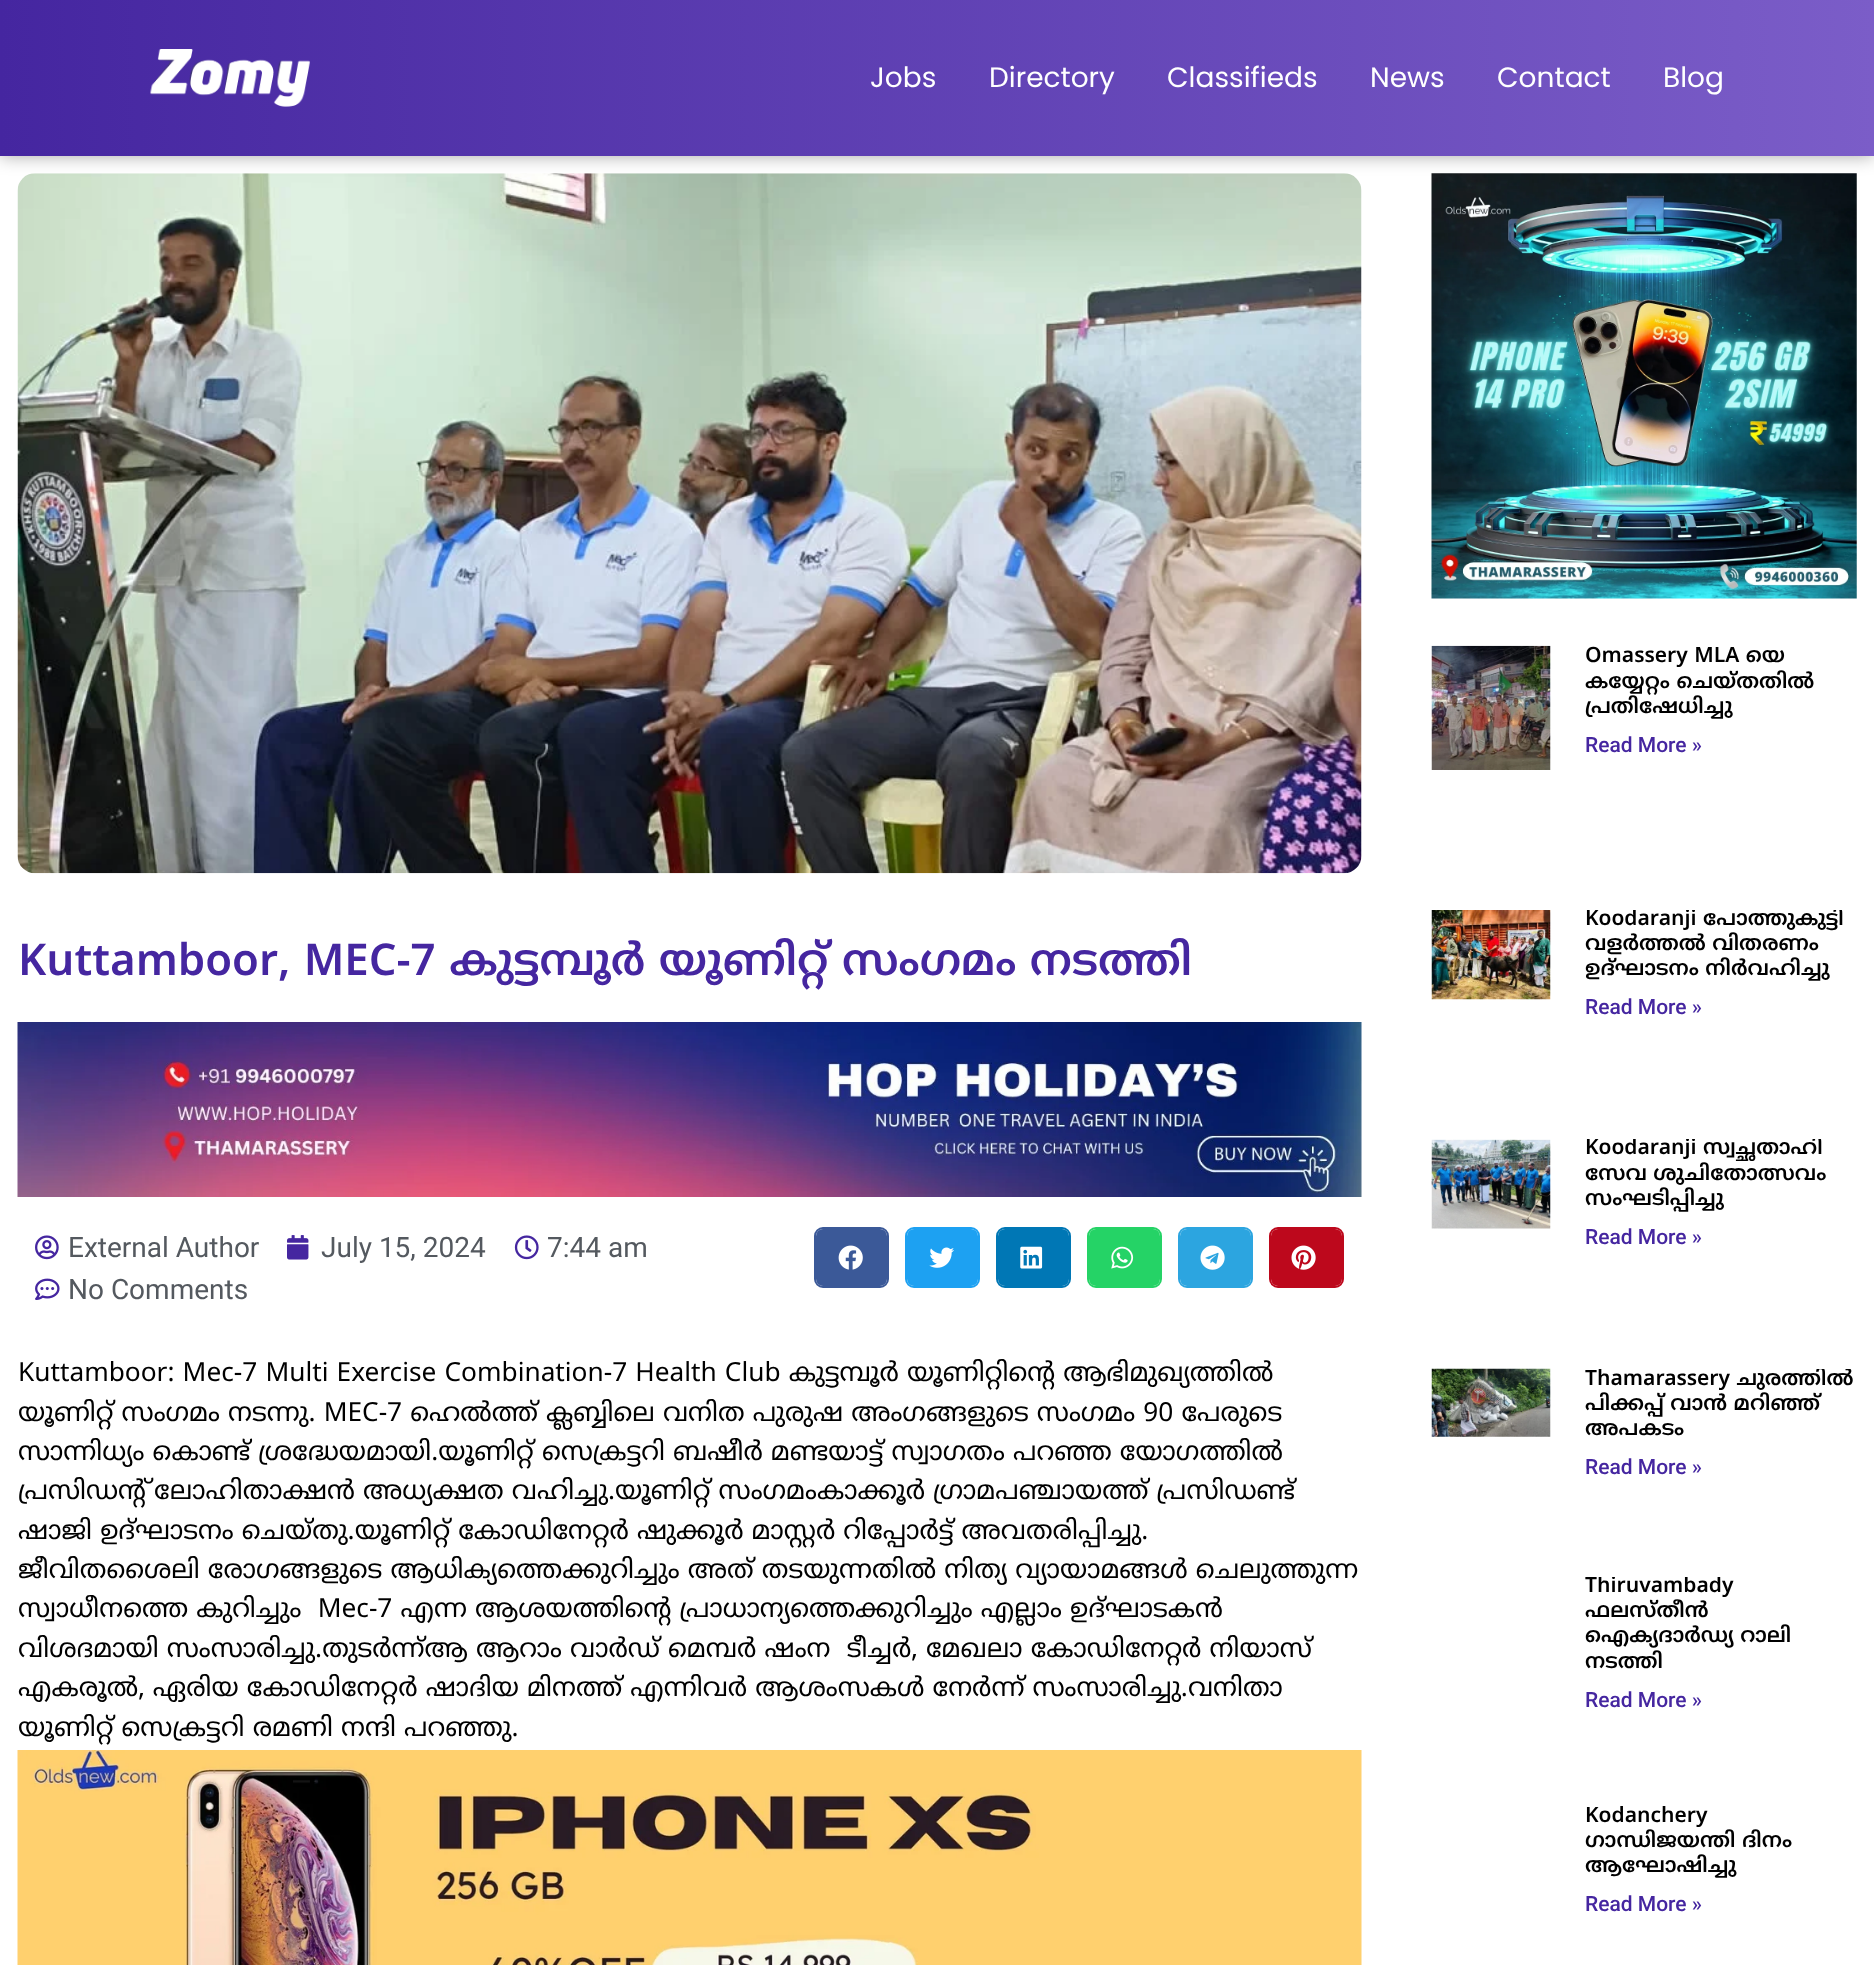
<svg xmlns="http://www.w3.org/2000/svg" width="1874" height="1965">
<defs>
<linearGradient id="g1" gradientUnits="userSpaceOnUse" x1="0" y1="78" x2="1874" y2="78"><stop offset="0" stop-color="#4526a0"/><stop offset="1" stop-color="#7b5dc8"/></linearGradient>
<clipPath id="clip1"><rect x="1432" y="910" width="425" height="168"/></clipPath>
<clipPath id="clip2"><rect x="1432" y="1139" width="425" height="168"/></clipPath>
<clipPath id="clip3"><rect x="1432" y="1369" width="425" height="147"/></clipPath>
<clipPath id="clip4"><rect x="1432" y="1577" width="425" height="168"/></clipPath>
</defs>
<rect width="100%" height="100%" fill="#fff"/>
<image x="17" y="173" width="1345" height="701" href="media/2.png"/>
<image x="1431" y="173" width="426" height="426" href="media/15.png"/>
<rect width="1874" height="156" fill="#00000057" filter="blur(9px)"/>
<rect width="1874" height="156" fill="url(#g1)"/>
<image x="150" y="49" width="160" height="58" href="media/1.png"/>
<text x="870" y="87" style="font-family:Poppins;font-size:28px;fill:#fff">Jobs</text>
<text x="989" y="87" style="font-family:Poppins;font-size:28px;fill:#fff">Directory</text>
<text x="1167" y="87" style="font-family:Poppins;font-size:28px;fill:#fff">Classifieds</text>
<text x="1370" y="87" style="font-family:Poppins;font-size:28px;fill:#fff">News</text>
<text x="1497" y="87" style="font-family:Poppins;font-size:28px;fill:#fff">Contact</text>
<text x="1663" y="87" style="font-family:Poppins;font-size:28px;fill:#fff">Blog</text>
<text x="18" y="975" style="font-family:Noto Sans Malayalam;font-size:43.75px;font-weight:600;fill:#4526a0">Kuttamboor, MEC-7 കുട്ടമ്പൂർ യൂണിറ്റ് സംഗമം നടത്തി</text>
<image x="17" y="1022" width="1345" height="175" href="media/3.png"/>
<image x="35" y="1235" width="24" height="25" href="media/4.png"/>
<text x="68" y="1257" style="font-family:Roboto;font-size:28px;fill:#54595f">External Author</text>
<image x="287" y="1235" width="22" height="25" href="media/5.png"/>
<text x="321" y="1257" style="font-family:Roboto;font-size:28px;fill:#54595f">July 15, 2024</text>
<image x="514" y="1235" width="25" height="25" href="media/6.png"/>
<text x="547" y="1257" style="font-family:Roboto;font-size:28px;fill:#54595f">7:44 am</text>
<image x="35" y="1278" width="25" height="22" href="media/7.png"/>
<text x="68" y="1299" style="font-family:Roboto;font-size:28px;fill:#54595f">No Comments</text>
<rect x="815" y="1228" width="73" height="59" rx="8" fill="none" stroke="#3b5998" stroke-width="2"/>
<rect x="816" y="1229" width="71" height="57" rx="7" fill="#3b5998"/>
<image x="838" y="1245" width="25" height="25" href="media/8.png"/>
<rect x="906" y="1228" width="73" height="59" rx="8" fill="none" stroke="#1da1f2" stroke-width="2"/>
<rect x="907" y="1229" width="71" height="57" rx="7" fill="#1da1f2"/>
<image x="929" y="1247" width="25" height="21" href="media/9.png"/>
<rect x="997" y="1228" width="73" height="59" rx="8" fill="none" stroke="#0077b5" stroke-width="2"/>
<rect x="998" y="1229" width="71" height="57" rx="7" fill="#0077b5"/>
<image x="1020" y="1246" width="23" height="23" href="media/10.png"/>
<rect x="1088" y="1228" width="73" height="59" rx="8" fill="none" stroke="#25d366" stroke-width="2"/>
<rect x="1089" y="1229" width="71" height="57" rx="7" fill="#25d366"/>
<image x="1111" y="1246" width="23" height="23" href="media/11.png"/>
<rect x="1179" y="1228" width="73" height="59" rx="8" fill="none" stroke="#2ca5e0" stroke-width="2"/>
<rect x="1180" y="1229" width="71" height="57" rx="7" fill="#2ca5e0"/>
<image x="1200" y="1245" width="25" height="25" href="media/12.png"/>
<rect x="1270" y="1228" width="73" height="59" rx="8" fill="none" stroke="#bd081c" stroke-width="2"/>
<rect x="1271" y="1229" width="71" height="57" rx="7" fill="#bd081c"/>
<image x="1291" y="1245" width="25" height="25" href="media/13.png"/>
<text x="18" y="1381" style="font-family:Noto Sans Malayalam;font-size:26.25px;fill:#000">Kuttamboor: Mec-7 Multi Exercise Combination-7 Health Club കുട്ടമ്പൂർ യൂണിറ്റിന്റെ ആഭിമുഖ്യത്തിൽ</text>
<text x="18" y="1421" style="font-family:Noto Sans Malayalam;font-size:26.25px;fill:#000">യൂണിറ്റ് സംഗമം നടന്നു. MEC-7 ഹെൽത്ത് ക്ലബ്ബിലെ വനിത പുരുഷ അംഗങ്ങളുടെ സംഗമം 90 പേരുടെ</text>
<text x="18" y="1460" style="font-family:Noto Sans Malayalam;font-size:26.25px;fill:#000">സാന്നിധ്യം കൊണ്ട് ശ്രദ്ധേയമായി.യൂണിറ്റ് സെക്രട്ടറി ബഷീർ മണ്ടയാട്ട് സ്വാഗതം പറഞ്ഞ യോഗത്തിൽ</text>
<text x="18" y="1499" style="font-family:Noto Sans Malayalam;font-size:26.25px;fill:#000">പ്രസിഡന്റ് ലോഹിതാക്ഷന്‍ അധ്യക്ഷത വഹിച്ചു.യൂണിറ്റ് സംഗമംകാക്കൂർ ഗ്രാമപഞ്ചായത്ത് പ്രസിഡണ്ട്</text>
<text x="18" y="1539" style="font-family:Noto Sans Malayalam;font-size:26.25px;fill:#000">ഷാജി ഉദ്ഘാടനം ചെയ്തു.യൂണിറ്റ് കോഡിനേറ്റർ ഷുക്കൂർ മാസ്റ്റർ റിപ്പോർട്ട് അവതരിപ്പിച്ചു.</text>
<text x="18" y="1578" style="font-family:Noto Sans Malayalam;font-size:26.25px;fill:#000">ജീവിതശൈലി രോഗങ്ങളുടെ ആധിക്യത്തെക്കുറിച്ചും അത് തടയുന്നതിൽ നിത്യ വ്യായാമങ്ങൾ ചെലുത്തുന്ന</text>
<text x="18" y="1617" style="font-family:Noto Sans Malayalam;font-size:26.25px;fill:#000" xml:space="preserve">സ്വാധീനത്തെ കുറിച്ചും  Mec-7 എന്ന ആശയത്തിന്റെ പ്രാധാന്യത്തെക്കുറിച്ചും എല്ലാം ഉദ്ഘാടകൻ</text>
<text x="18" y="1657" style="font-family:Noto Sans Malayalam;font-size:26.25px;fill:#000" xml:space="preserve">വിശദമായി സംസാരിച്ചു.തുടർന്ന്ആ ആറാം വാർഡ് മെമ്പർ ഷംന  ടീച്ചർ, മേഖലാ കോഡിനേറ്റർ നിയാസ്</text>
<text x="18" y="1696" style="font-family:Noto Sans Malayalam;font-size:26.25px;fill:#000">എകരൂൽ, ഏരിയ കോഡിനേറ്റർ ഷാദിയ മിനത്ത് എന്നിവർ ആശംസകൾ നേർന്ന് സംസാരിച്ചു.വനിതാ</text>
<text x="18" y="1736" style="font-family:Noto Sans Malayalam;font-size:26.25px;fill:#000">യൂണിറ്റ് സെക്രട്ടറി രമണി നന്ദി പറഞ്ഞു.</text>
<image x="17" y="1750" width="1345" height="215" href="media/14.png"/>
<image x="1431" y="645" width="120" height="125" href="media/16.png"/>
<text x="1585" y="662" style="font-family:Noto Sans Malayalam;font-size:21px;font-weight:600;fill:#000">Omassery MLA യെ</text>
<text x="1585" y="688" style="font-family:Noto Sans Malayalam;font-size:21px;font-weight:600;fill:#000">കയ്യേറ്റം ചെയ്തതിൽ</text>
<text x="1585" y="713" style="font-family:Noto Sans Malayalam;font-size:21px;font-weight:600;fill:#000">പ്രതിഷേധിച്ചു</text>
<text x="1585" y="752" style="font-family:Roboto;font-size:21px;font-weight:500;fill:#4526a0">Read More »</text>
<image x="1431" y="910" width="120" height="90" href="media/17.png"/>
<g clip-path="url(#clip1)">
<text x="1585" y="925" style="font-family:Noto Sans Malayalam;font-size:21px;font-weight:600;fill:#000">Koodaranji പോത്തുകുട്ടി</text>
</g>
<text x="1585" y="950" style="font-family:Noto Sans Malayalam;font-size:21px;font-weight:600;fill:#000">വളർത്തൽ വിതരണം</text>
<text x="1585" y="975" style="font-family:Noto Sans Malayalam;font-size:21px;font-weight:600;fill:#000">ഉദ്ഘാടനം നിർവഹിച്ചു</text>
<text x="1585" y="1014" style="font-family:Roboto;font-size:21px;font-weight:500;fill:#4526a0">Read More »</text>
<image x="1431" y="1139" width="120" height="90" href="media/18.png"/>
<g clip-path="url(#clip2)">
<text x="1585" y="1154" style="font-family:Noto Sans Malayalam;font-size:21px;font-weight:600;fill:#000">Koodaranji സ്വച്ഛതാഹി</text>
</g>
<text x="1585" y="1180" style="font-family:Noto Sans Malayalam;font-size:21px;font-weight:600;fill:#000">സേവ ശുചിതോത്സവം</text>
<text x="1585" y="1205" style="font-family:Noto Sans Malayalam;font-size:21px;font-weight:600;fill:#000">സംഘടിപ്പിച്ചു</text>
<text x="1585" y="1244" style="font-family:Roboto;font-size:21px;font-weight:500;fill:#4526a0">Read More »</text>
<image x="1431" y="1368" width="120" height="69" href="media/19.png"/>
<g clip-path="url(#clip3)">
<text x="1585" y="1385" style="font-family:Noto Sans Malayalam;font-size:21px;font-weight:600;fill:#000">Thamarassery ചുരത്തിൽ</text>
</g>
<text x="1585" y="1410" style="font-family:Noto Sans Malayalam;font-size:21px;font-weight:600;fill:#000">പിക്കപ്പ് വാൻ മറിഞ്ഞ്</text>
<text x="1585" y="1435" style="font-family:Noto Sans Malayalam;font-size:21px;font-weight:600;fill:#000">അപകടം</text>
<text x="1585" y="1474" style="font-family:Roboto;font-size:21px;font-weight:500;fill:#4526a0">Read More »</text>
<g clip-path="url(#clip4)">
<text x="1585" y="1592" style="font-family:Noto Sans Malayalam;font-size:21px;font-weight:600;fill:#000">Thiruvambady</text>
</g>
<text x="1585" y="1617" style="font-family:Noto Sans Malayalam;font-size:21px;font-weight:600;fill:#000">ഫലസ്തീൻ</text>
<text x="1585" y="1642" style="font-family:Noto Sans Malayalam;font-size:21px;font-weight:600;fill:#000">ഐക്യദാർഡ്യ റാലി</text>
<text x="1585" y="1668" style="font-family:Noto Sans Malayalam;font-size:21px;font-weight:600;fill:#000">നടത്തി</text>
<text x="1585" y="1707" style="font-family:Roboto;font-size:21px;font-weight:500;fill:#4526a0">Read More »</text>
<text x="1585" y="1822" style="font-family:Noto Sans Malayalam;font-size:21px;font-weight:600;fill:#000">Kodanchery</text>
<text x="1585" y="1847" style="font-family:Noto Sans Malayalam;font-size:21px;font-weight:600;fill:#000">ഗാന്ധിജയന്തി ദിനം</text>
<text x="1585" y="1872" style="font-family:Noto Sans Malayalam;font-size:21px;font-weight:600;fill:#000">ആഘോഷിച്ചു</text>
<text x="1585" y="1911" style="font-family:Roboto;font-size:21px;font-weight:500;fill:#4526a0">Read More »</text>
</svg>
